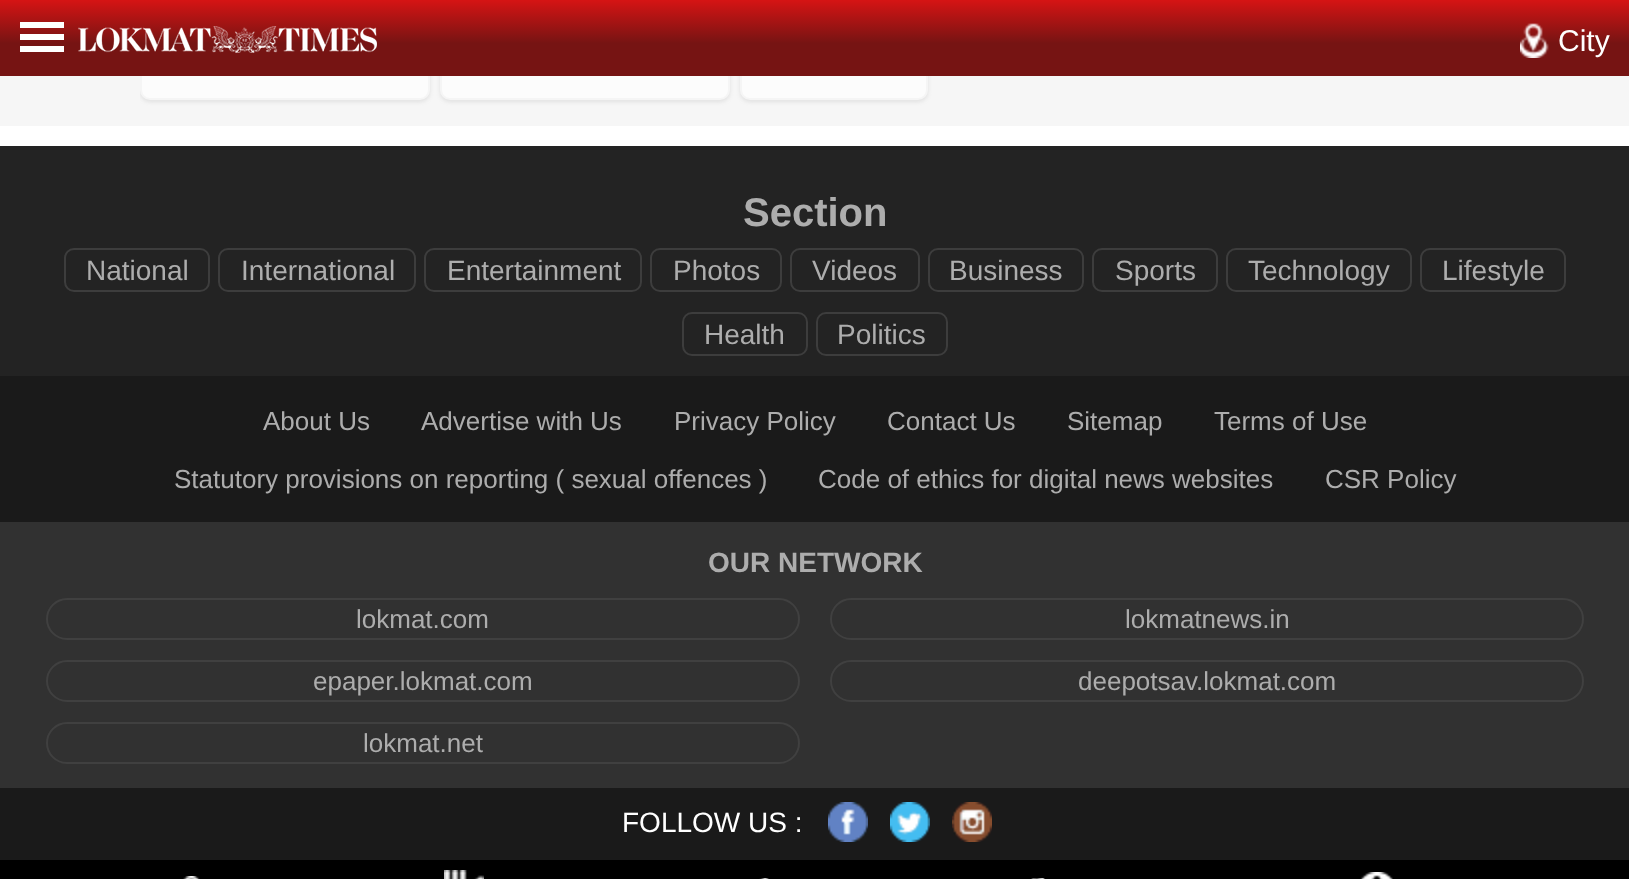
<svg xmlns="http://www.w3.org/2000/svg" width="1629" height="879">
<defs>
<clipPath id="clip1"><rect x="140" y="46" width="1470" height="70"/></clipPath>
<linearGradient id="g1" gradientUnits="userSpaceOnUse" x1="815" y1="76" x2="815" y2="0"><stop offset="0" stop-color="#761413"/><stop offset="0.43" stop-color="#761413"/><stop offset="1" stop-color="#d61414"/></linearGradient>
</defs>
<rect width="100%" height="100%" fill="#fff"/>
<rect y="76" width="1629" height="50" fill="#f6f6f6"/>
<g clip-path="url(#clip1)">
<rect x="140" y="48" width="290" height="54" rx="10" fill="#6b6b6b26" filter="blur(2px)"/>
</g>
<rect x="141" y="47" width="288" height="52" rx="9" fill="#fcfcfc" stroke="#f5f5f5" stroke-width="2"/>
<rect x="440" y="48" width="290" height="54" rx="10" fill="#6b6b6b26" filter="blur(2px)"/>
<rect x="441" y="47" width="288" height="52" rx="9" fill="#fcfcfc" stroke="#f5f5f5" stroke-width="2"/>
<rect x="740" y="48" width="188" height="54" rx="10" fill="#6b6b6b26" filter="blur(2px)"/>
<rect x="741" y="47" width="186" height="52" rx="9" fill="#fcfcfc" stroke="#f5f5f5" stroke-width="2"/>
<rect width="1629" height="76" fill="url(#g1)"/>
<rect x="20" y="22" width="44" height="6" fill="#fff"/>
<rect x="20" y="34" width="44" height="6" fill="#fff"/>
<rect x="20" y="46" width="44" height="6" fill="#fff"/>
<image x="78" y="26" width="299" height="27" href="media/1.png"/>
<image x="1520" y="23" width="29" height="35" href="media/2.png"/>
<text x="1558" y="51" style="font-family:Liberation Sans;font-size:30px;fill:#fff">City</text>
<rect y="146" width="1629" height="230" fill="#232323"/>
<text x="743" y="226" style="font-family:Liberation Sans;font-size:40px;font-weight:bold;fill:#adadad">Section</text>
<rect x="65" y="249" width="144" height="42" rx="9" fill="none" stroke="#3d3d3d" stroke-width="2"/>
<text x="86" y="280" style="font-family:Liberation Sans;font-size:28px;fill:#adadad">National</text>
<rect x="219" y="249" width="196" height="42" rx="9" fill="none" stroke="#3d3d3d" stroke-width="2"/>
<text x="241" y="280" style="font-family:Liberation Sans;font-size:28px;fill:#adadad">International</text>
<rect x="425" y="249" width="216" height="42" rx="9" fill="none" stroke="#3d3d3d" stroke-width="2"/>
<text x="447" y="280" style="font-family:Liberation Sans;font-size:28px;fill:#adadad">Entertainment</text>
<rect x="651" y="249" width="130" height="42" rx="9" fill="none" stroke="#3d3d3d" stroke-width="2"/>
<text x="673" y="280" style="font-family:Liberation Sans;font-size:28px;fill:#adadad">Photos</text>
<rect x="791" y="249" width="128" height="42" rx="9" fill="none" stroke="#3d3d3d" stroke-width="2"/>
<text x="812" y="280" style="font-family:Liberation Sans;font-size:28px;fill:#adadad">Videos</text>
<rect x="929" y="249" width="154" height="42" rx="9" fill="none" stroke="#3d3d3d" stroke-width="2"/>
<text x="949" y="280" style="font-family:Liberation Sans;font-size:28px;fill:#adadad">Business</text>
<rect x="1093" y="249" width="124" height="42" rx="9" fill="none" stroke="#3d3d3d" stroke-width="2"/>
<text x="1115" y="280" style="font-family:Liberation Sans;font-size:28px;fill:#adadad">Sports</text>
<rect x="1227" y="249" width="184" height="42" rx="9" fill="none" stroke="#3d3d3d" stroke-width="2"/>
<text x="1248" y="280" style="font-family:Liberation Sans;font-size:28px;fill:#adadad">Technology</text>
<rect x="1421" y="249" width="144" height="42" rx="9" fill="none" stroke="#3d3d3d" stroke-width="2"/>
<text x="1442" y="280" style="font-family:Liberation Sans;font-size:28px;fill:#adadad">Lifestyle</text>
<rect x="683" y="313" width="124" height="42" rx="9" fill="none" stroke="#3d3d3d" stroke-width="2"/>
<text x="704" y="344" style="font-family:Liberation Sans;font-size:28px;fill:#adadad">Health</text>
<rect x="817" y="313" width="130" height="42" rx="9" fill="none" stroke="#3d3d3d" stroke-width="2"/>
<text x="837" y="344" style="font-family:Liberation Sans;font-size:28px;fill:#adadad">Politics</text>
<rect y="376" width="1629" height="146" fill="#1a1a1a"/>
<text x="263" y="430" style="font-family:Liberation Sans;font-size:26px;fill:#adadad">About Us</text>
<text x="421" y="430" style="font-family:Liberation Sans;font-size:26px;fill:#adadad">Advertise with Us</text>
<text x="674" y="430" style="font-family:Liberation Sans;font-size:26px;fill:#adadad">Privacy Policy</text>
<text x="887" y="430" style="font-family:Liberation Sans;font-size:26px;fill:#adadad">Contact Us</text>
<text x="1067" y="430" style="font-family:Liberation Sans;font-size:26px;fill:#adadad">Sitemap</text>
<text x="1214" y="430" style="font-family:Liberation Sans;font-size:26px;fill:#adadad">Terms of Use</text>
<text x="174" y="488" style="font-family:Liberation Sans;font-size:26px;fill:#adadad">Statutory provisions on reporting ( sexual offences )</text>
<text x="818" y="488" style="font-family:Liberation Sans;font-size:26px;fill:#adadad">Code of ethics for digital news websites</text>
<text x="1325" y="488" style="font-family:Liberation Sans;font-size:26px;fill:#adadad">CSR Policy</text>
<rect y="522" width="1629" height="266" fill="#313131"/>
<text x="708" y="572" style="font-family:Liberation Sans;font-size:28px;font-weight:bold;fill:#adadad">OUR NETWORK</text>
<rect x="47" y="599" width="752" height="40" rx="20" fill="none" stroke="#404040" stroke-width="2"/>
<text x="356" y="628" style="font-family:Liberation Sans;font-size:26px;fill:#adadad">lokmat.com</text>
<rect x="831" y="599" width="752" height="40" rx="20" fill="none" stroke="#404040" stroke-width="2"/>
<text x="1125" y="628" style="font-family:Liberation Sans;font-size:26px;fill:#adadad">lokmatnews.in</text>
<rect x="47" y="661" width="752" height="40" rx="20" fill="none" stroke="#404040" stroke-width="2"/>
<text x="313" y="690" style="font-family:Liberation Sans;font-size:26px;fill:#adadad">epaper.lokmat.com</text>
<rect x="831" y="661" width="752" height="40" rx="20" fill="none" stroke="#404040" stroke-width="2"/>
<text x="1078" y="690" style="font-family:Liberation Sans;font-size:26px;fill:#adadad">deepotsav.lokmat.com</text>
<rect x="47" y="723" width="752" height="40" rx="20" fill="none" stroke="#404040" stroke-width="2"/>
<text x="363" y="752" style="font-family:Liberation Sans;font-size:26px;fill:#adadad">lokmat.net</text>
<rect y="788" width="1629" height="72" fill="#1a1a1a"/>
<text x="622" y="832" style="font-family:Liberation Sans;font-size:28px;fill:#fff">FOLLOW US :</text>
<image x="828" y="802" width="40" height="40" href="media/3.png"/>
<image x="890" y="802" width="40" height="40" href="media/4.png"/>
<image x="952" y="802" width="40" height="40" href="media/5.png"/>
<rect y="860" width="1629" height="19" fill="#000"/>
<image x="183" y="876" width="17" height="3" href="media/6.png"/>
<image x="444" y="870" width="40" height="9" href="media/7.png"/>
<image x="759" y="878" width="10" height="1" href="media/8.png"/>
<image x="1031" y="878" width="14" height="1" href="media/9.png"/>
<image x="1360" y="872" width="33" height="7" href="media/10.png"/>
</svg>
